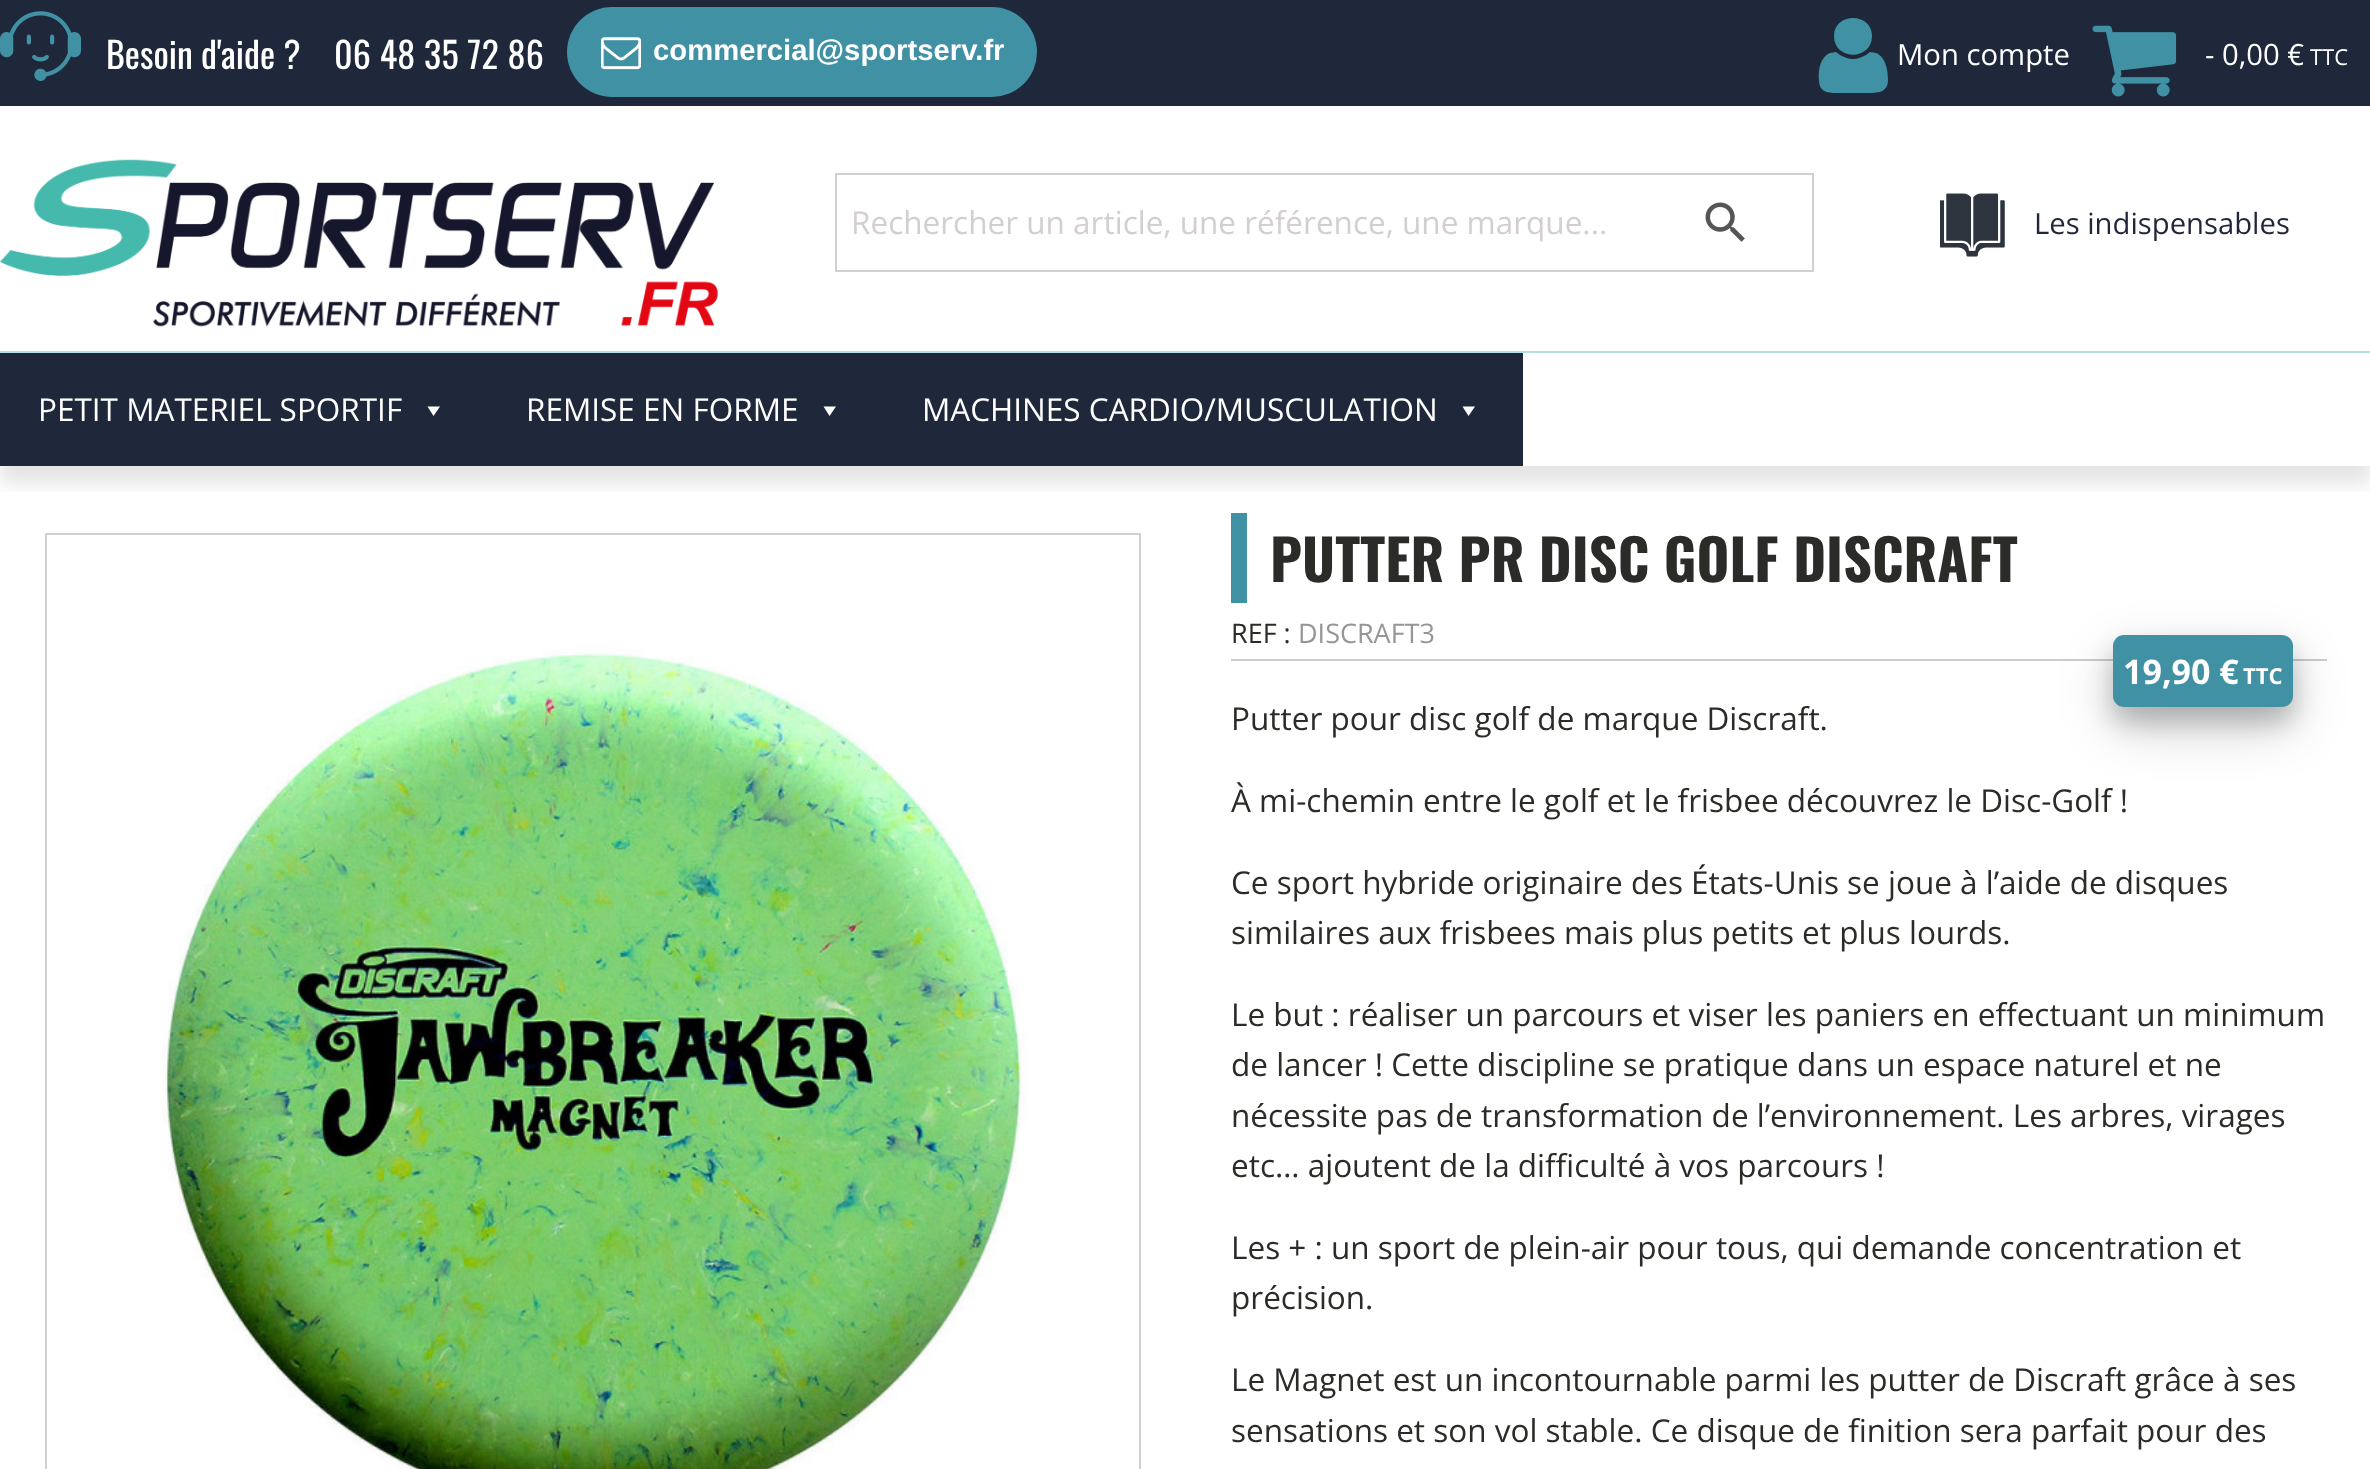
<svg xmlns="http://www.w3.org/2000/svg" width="2370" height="1469">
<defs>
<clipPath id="clip1"><rect x="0" y="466" width="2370" height="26"/></clipPath>
</defs>
<rect width="100%" height="100%" fill="#fff"/>
<g clip-path="url(#clip1)">
<rect y="63" width="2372" height="421" fill="#0000001a" filter="blur(9px)"/>
</g>
<rect width="2370" height="106" fill="#1f273a"/>
<image x="0" y="11" width="81" height="70" href="media/1.png"/>
<text x="106" y="69" style="font-family:Oswald;font-size:36px;fill:#fff">Besoin d'aide ?</text>
<text x="334" y="69" style="font-family:Oswald;font-size:36px;letter-spacing:0.25px;fill:#fff">06 48 35 72 86</text>
<rect x="567" y="7" width="470" height="90" rx="45" fill="#4091a3"/>
<image x="601" y="37" width="40" height="33" href="media/2.png"/>
<text x="653" y="60" style="font-family:Liberation Sans;font-size:29.25px;font-weight:bold;fill:#fff">commercial@sportserv.fr</text>
<path d="M1888 80c0 13-11 13-21 13h-28c-10 0-20 0-20-13c-1-9 1-23 11-27l6-1l4 3c4 2 8 4 13 4c5 0 9-2 13-4l4-3l6 1c10 4 12 18 12 27zm-16-44c0 25-38 25-38 0c0-24 38-24 38 0z" fill="#4091a3"/>
<text x="1897" y="65" style="font-family:Open Sans;font-size:29.25px;fill:#fff">Mon compte</text>
<image x="2092" y="25" width="85" height="72" href="media/3.png"/>
<text x="2205" y="65" style="font-family:Open Sans;font-size:29.25px;fill:#fff">- 0,00 €</text>
<text x="2310" y="65" style="font-family:Open Sans;font-size:22px;fill:#fff">TTC</text>
<rect y="351" width="2370" height="2" fill="#b2dfe1"/>
<image x="0" y="159" width="718" height="168" href="media/4.png"/>
<rect x="836" y="174" width="977" height="97" fill="none" stroke="#d3ced2" stroke-width="2"/>
<text x="851" y="234" style="font-family:Open Sans;font-size:31.5px;fill:#d3ced2">Rechercher un article, une référence, une marque...</text>
<image x="1705" y="202" width="40" height="40" href="media/5.png"/>
<image x="1940" y="193" width="65" height="64" href="media/6.png"/>
<text x="2034" y="234" style="font-family:Open Sans;font-size:29.25px;fill:#1f273a">Les indispensables</text>
<rect x="1523" y="465" width="847" height="1" fill="#fff"/>
<rect y="353" width="1523" height="113" fill="#1f273a"/>
<text x="38" y="421" style="font-family:Open Sans;font-size:31.5px;fill:#fff">PETIT MATERIEL SPORTIF</text>
<path d="M440 406.5l-6.5 9.5l-6-9.5z" fill="#fff"/>
<text x="526" y="421" style="font-family:Open Sans;font-size:31.5px;fill:#fff">REMISE EN FORME</text>
<path d="M836 406.5l-6.5 9.5l-6-9.5z" fill="#fff"/>
<text x="922" y="421" style="font-family:Open Sans;font-size:31.5px;fill:#fff">MACHINES CARDIO/MUSCULATION</text>
<path d="M1475 406.5l-6.5 9.5l-6-9.5z" fill="#fff"/>
<rect x="46" y="534" width="1094" height="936" fill="none" stroke="#d3ced2" stroke-width="2"/>
<image x="162" y="649" width="867" height="820" href="media/7.png"/>
<rect x="1231" y="513" width="16" height="90" fill="#4091a3"/>
<text x="1270" y="582" style="font-family:Oswald;font-size:56.25px;font-weight:bold;fill:#2b2c28">PUTTER PR DISC GOLF DISCRAFT</text>
<text x="1231" y="643" style="font-family:Open Sans;font-size:27px;fill:#2b2c28">REF :</text>
<text x="1298" y="643" style="font-family:Open Sans;font-size:27px;fill:#969696">DISCRAFT3</text>
<rect x="1231" y="659" width="1096" height="2" fill="#ccc"/>
<rect x="2113" y="655" width="180" height="72" rx="11" fill="#00000030" filter="blur(26px)"/>
<rect x="2113" y="650" width="180" height="72" rx="11" fill="#00000033" filter="blur(12.5px)"/>
<rect x="2113" y="635" width="180" height="72" rx="11" fill="#4091a3"/>
<text x="2123" y="684" style="font-family:Open Sans;font-size:34px;font-weight:bold;fill:#fff">19,90 €</text>
<text x="2243" y="684" style="font-family:Open Sans;font-size:22px;font-weight:bold;fill:#fff">TTC</text>
<text x="1231" y="730" style="font-family:Open Sans;font-size:31.5px;fill:#2b2c28">Putter pour disc golf de marque Discraft.</text>
<text x="1231" y="812" style="font-family:Open Sans;font-size:31.5px;fill:#2b2c28">À mi-chemin entre le golf et le frisbee découvrez le Disc-Golf !</text>
<text x="1231" y="894" style="font-family:Open Sans;font-size:31.5px;fill:#2b2c28">Ce sport hybride originaire des États-Unis se joue à l’aide de disques</text>
<text x="1231" y="944" style="font-family:Open Sans;font-size:31.5px;fill:#2b2c28">similaires aux frisbees mais plus petits et plus lourds.</text>
<text x="1231" y="1026" style="font-family:Open Sans;font-size:31.5px;fill:#2b2c28">Le but : réaliser un parcours et viser les paniers en effectuant un minimum</text>
<text x="1231" y="1076" style="font-family:Open Sans;font-size:31.5px;fill:#2b2c28">de lancer ! Cette discipline se pratique dans un espace naturel et ne</text>
<text x="1231" y="1127" style="font-family:Open Sans;font-size:31.5px;fill:#2b2c28">nécessite pas de transformation de l’environnement. Les arbres, virages</text>
<text x="1231" y="1177" style="font-family:Open Sans;font-size:31.5px;fill:#2b2c28">etc… ajoutent de la difficulté à vos parcours !</text>
<text x="1231" y="1259" style="font-family:Open Sans;font-size:31.5px;fill:#2b2c28">Les + : un sport de plein-air pour tous, qui demande concentration et</text>
<text x="1231" y="1309" style="font-family:Open Sans;font-size:31.5px;fill:#2b2c28">précision.</text>
<text x="1231" y="1391" style="font-family:Open Sans;font-size:31.5px;fill:#2b2c28">Le Magnet est un incontournable parmi les putter de Discraft grâce à ses</text>
<text x="1231" y="1442" style="font-family:Open Sans;font-size:31.5px;fill:#2b2c28">sensations et son vol stable. Ce disque de finition sera parfait pour des</text>
</svg>
